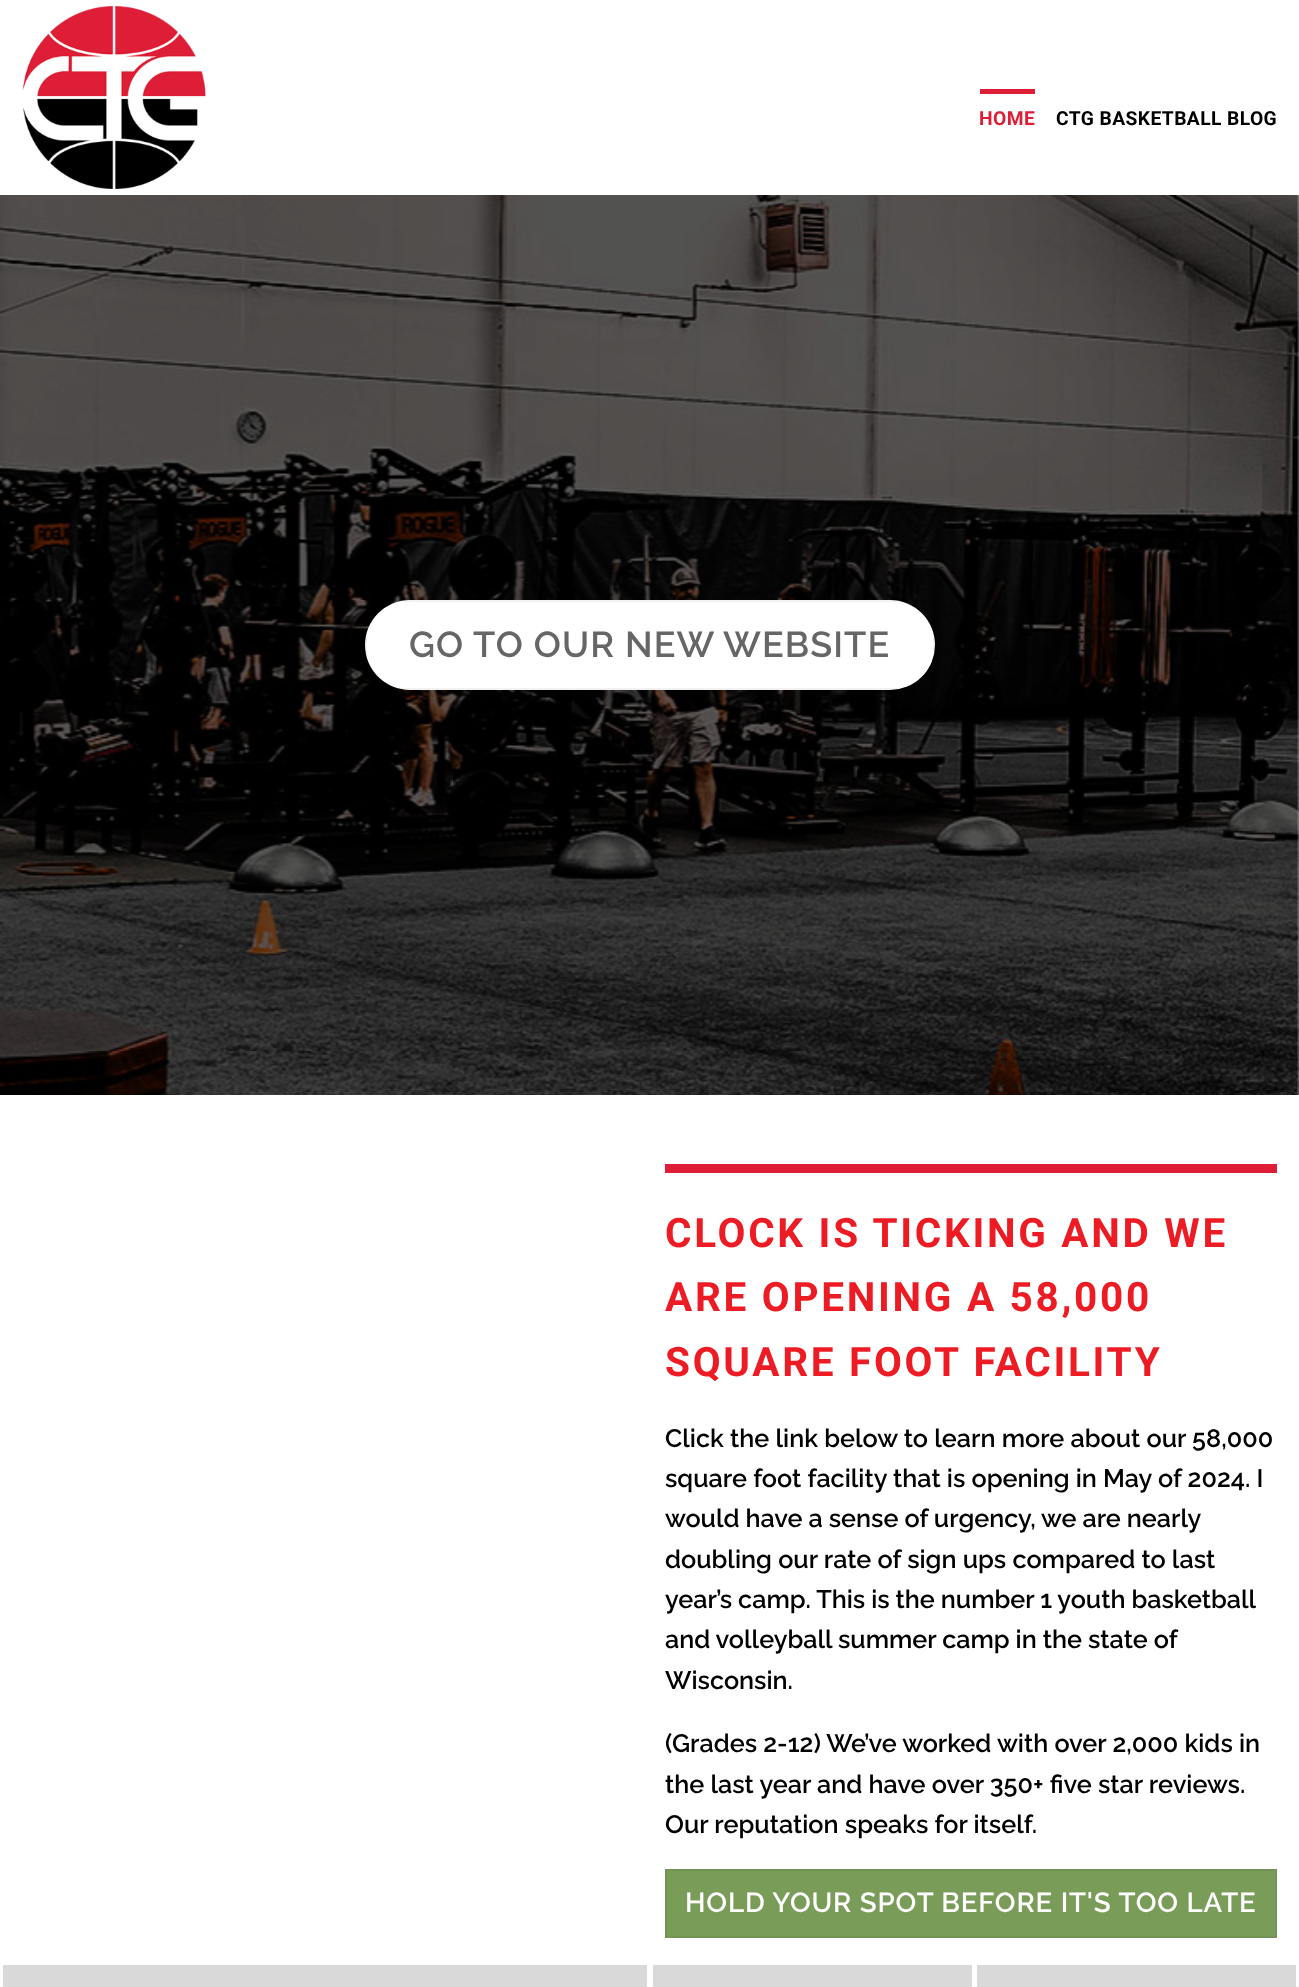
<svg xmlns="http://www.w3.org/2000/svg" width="1299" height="1987">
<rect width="100%" height="100%" fill="#fff"/>
<image x="22" y="6" width="184" height="183" href="media/1.png"/>
<rect x="980" y="89" width="55" height="5" fill="#dd1e36"/>
<text x="979" y="125" style="font-family:Roboto;font-size:19.25px;font-weight:bold;letter-spacing:0.4px;fill:#dd1e36">HOME</text>
<text x="1056" y="125" style="font-family:Roboto;font-size:19.25px;font-weight:bold;letter-spacing:0.4px;fill:#000">CTG BASKETBALL BLOG</text>
<image x="0" y="195" width="1299" height="900" href="media/2.png"/>
<rect x="365" y="600" width="570" height="90" rx="45" fill="#fff"/>
<rect x="366" y="601" width="568" height="88" fill="none" stroke="#0000000d" stroke-width="2"/>
<text x="409" y="657" style="font-family:Raleway;font-size:36px;font-weight:100;letter-spacing:1.1px;fill:#666">GO TO OUR NEW WEBSITE</text>
<rect x="665" y="1164" width="612" height="9" fill="#dd1e36"/>
<text x="665" y="1247" style="font-family:Roboto;font-size:40.5px;font-weight:bold;letter-spacing:2.7px;fill:#ed1c24">CLOCK IS TICKING AND WE</text>
<text x="665" y="1311" style="font-family:Roboto;font-size:40.5px;font-weight:bold;letter-spacing:2.7px;fill:#ed1c24">ARE OPENING A 58,000</text>
<text x="665" y="1376" style="font-family:Roboto;font-size:40.5px;font-weight:bold;letter-spacing:2.7px;fill:#ed1c24">SQUARE FOOT FACILITY</text>
<text x="665" y="1447" style="font-family:Raleway;font-size:25.2px;font-weight:100;fill:#000">Click the link below to learn more about our 58,000</text>
<text x="665" y="1487" style="font-family:Raleway;font-size:25.2px;font-weight:100;fill:#000">square foot facility that is opening in May of 2024. I</text>
<text x="665" y="1527" word-spacing="-0.25" style="font-family:Raleway;font-size:25.2px;font-weight:100;fill:#000">would have a sense of urgency, we are nearly</text>
<text x="665" y="1568" style="font-family:Raleway;font-size:25.2px;font-weight:100;fill:#000">doubling our rate of sign ups compared to last</text>
<text x="665" y="1608" word-spacing="-0.25" style="font-family:Raleway;font-size:25.2px;font-weight:100;fill:#000">year’s camp. This is the number 1 youth basketball</text>
<text x="665" y="1648" word-spacing="-0.25" style="font-family:Raleway;font-size:25.2px;font-weight:100;fill:#000">and volleyball summer camp in the state of</text>
<text x="665" y="1689" style="font-family:Raleway;font-size:25.2px;font-weight:100;fill:#000">Wisconsin.</text>
<text x="665" y="1752" style="font-family:Raleway;font-size:25.2px;font-weight:100;fill:#000">(Grades 2-12) We’ve worked with over 2,000 kids in</text>
<text x="665" y="1793" style="font-family:Raleway;font-size:25.2px;font-weight:100;fill:#000">the last year and have over 350+ five star reviews.</text>
<text x="665" y="1833" style="font-family:Raleway;font-size:25.2px;font-weight:100;fill:#000">Our reputation speaks for itself.</text>
<rect x="666" y="1870" width="610" height="67" fill="#7a9c59" stroke="#749455" stroke-width="2"/>
<text x="685" y="1912" style="font-family:Raleway;font-size:27.6px;font-weight:100;letter-spacing:0.85px;fill:#fff">HOLD YOUR SPOT BEFORE IT'S TOO LATE</text>
<rect x="3" y="1965" width="644" height="22" fill="#d9d9d9"/>
<rect x="653" y="1965" width="319" height="22" fill="#d9d9d9"/>
<rect x="977" y="1965" width="319" height="22" fill="#d9d9d9"/>
</svg>
